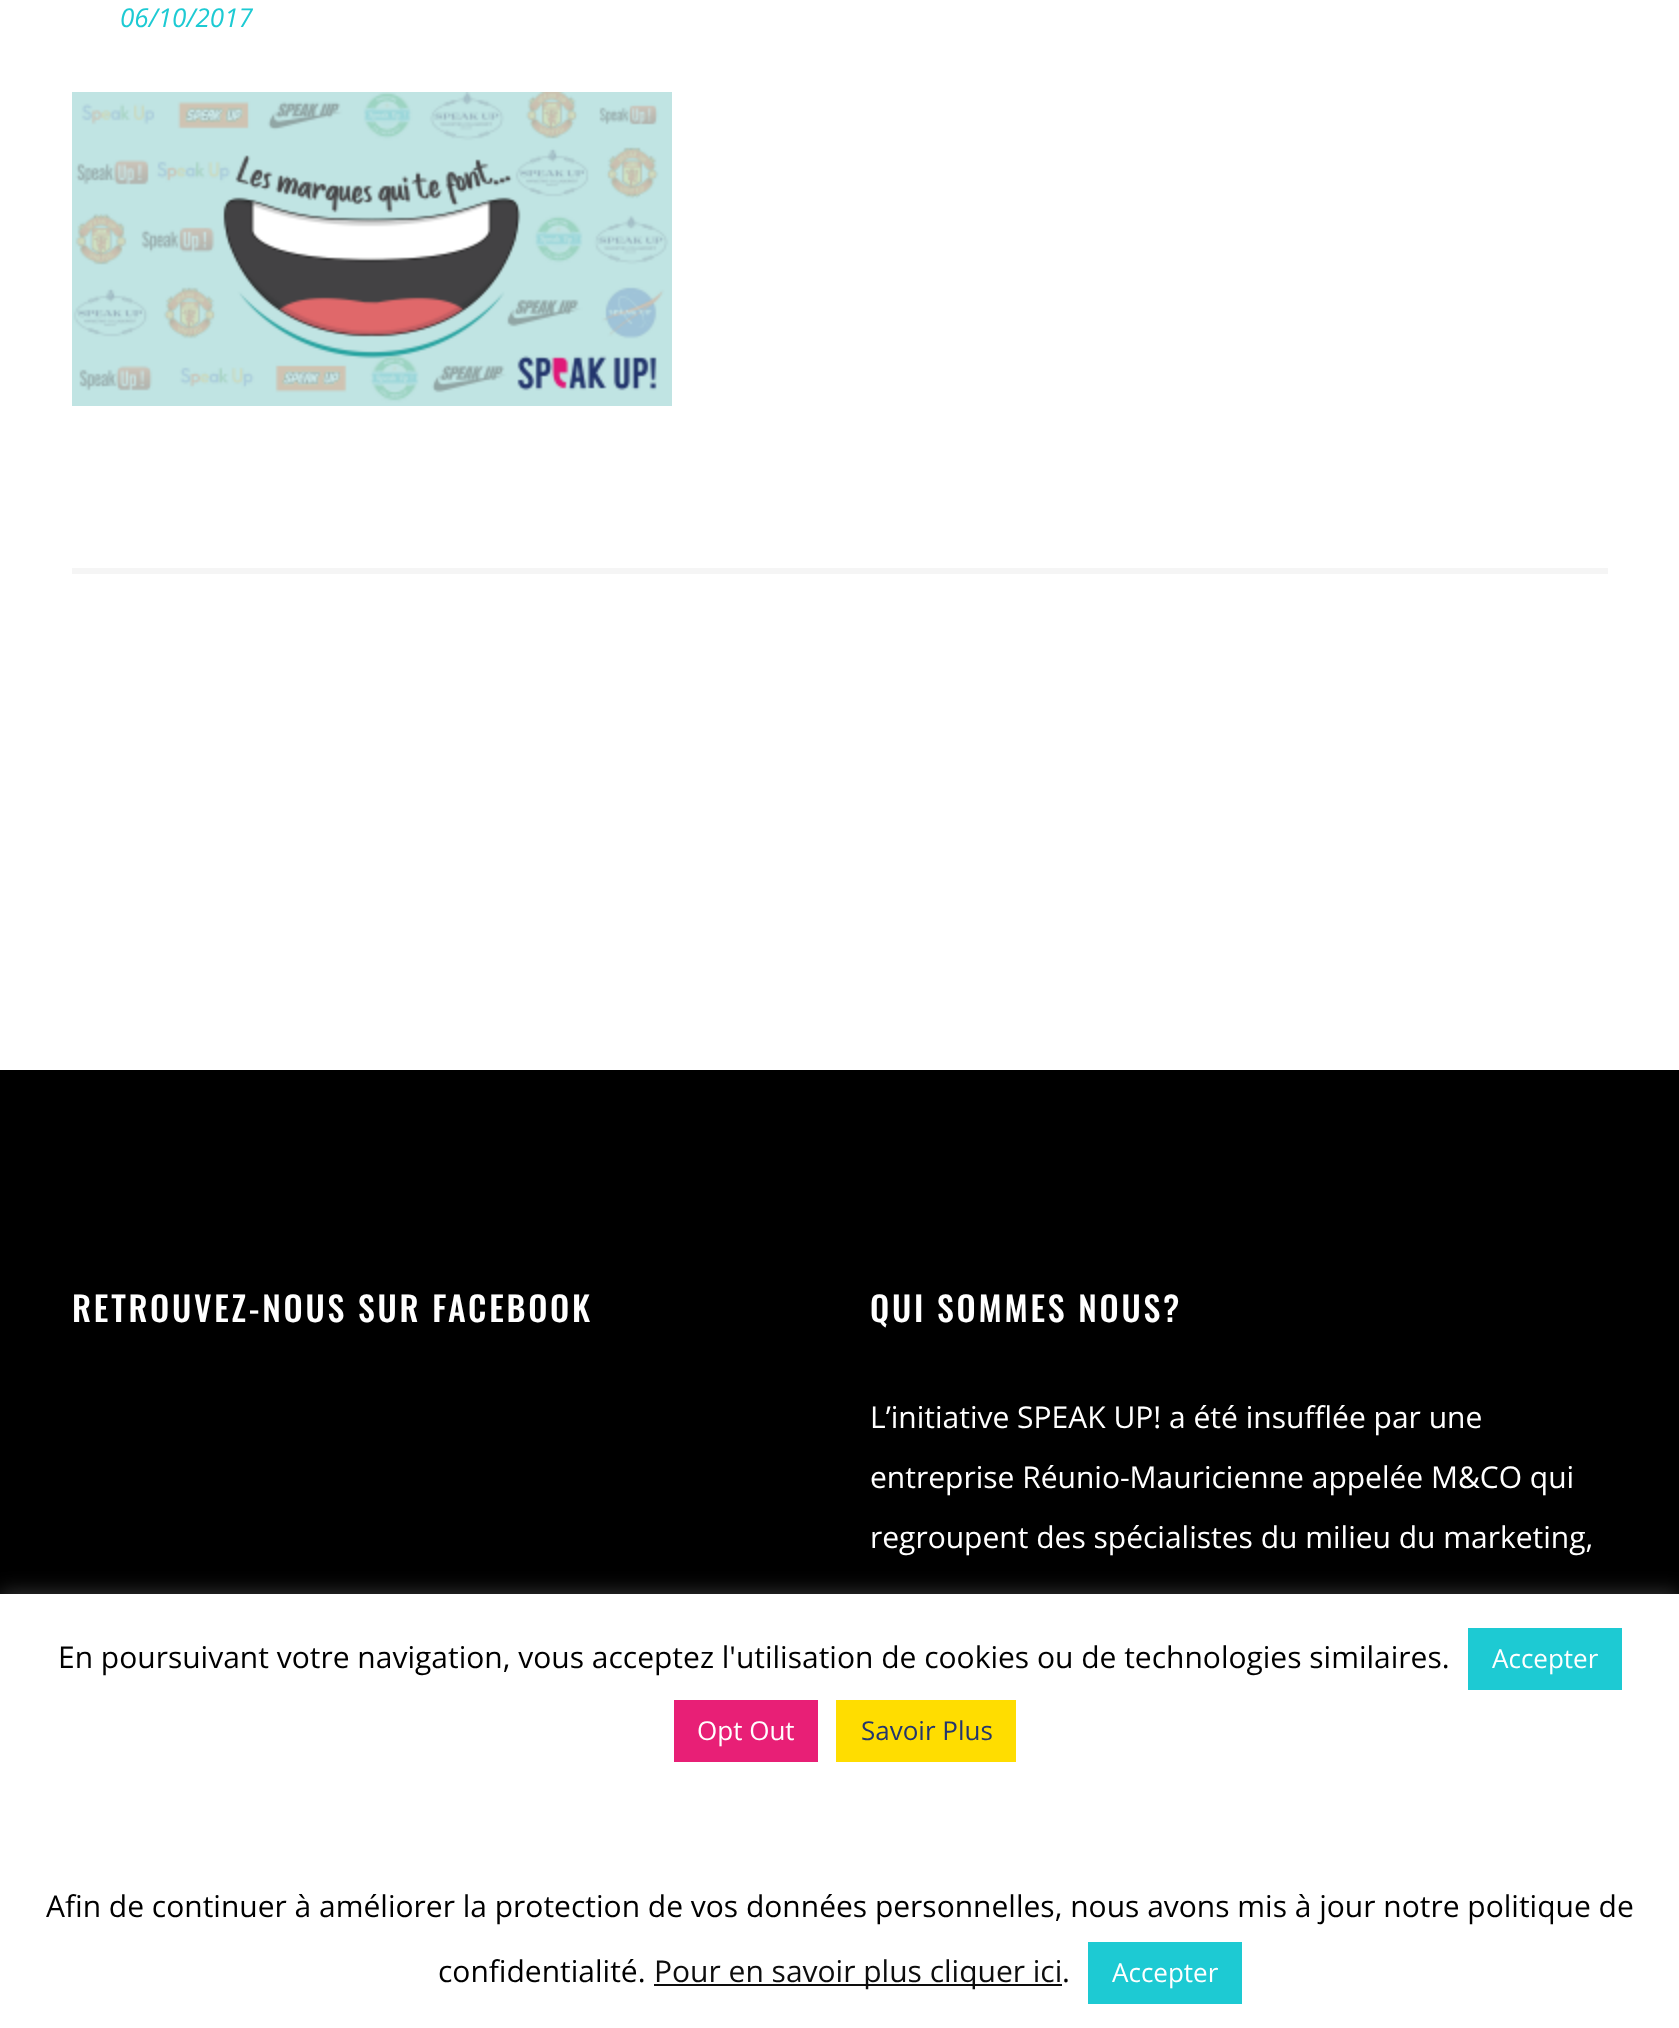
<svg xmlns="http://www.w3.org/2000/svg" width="1679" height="2028">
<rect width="100%" height="100%" fill="#fff"/>
<text x="120" y="27" style="font-family:Open Sans;font-size:26px;font-style:italic;fill:#1dcad3">06/10/2017</text>
<image x="72" y="92" width="600" height="314" href="media/1.png"/>
<rect x="72" y="568" width="1536" height="6" fill="#f5f5f5"/>
<rect y="1070" width="1679" height="524" fill="#000"/>
<text x="72" y="1322" style="font-family:Oswald;font-size:34px;font-weight:500;letter-spacing:2.75px;fill:#fff">RETROUVEZ-NOUS SUR FACEBOOK</text>
<text x="870" y="1322" style="font-family:Oswald;font-size:34px;font-weight:500;letter-spacing:2.75px;fill:#fff">QUI SOMMES NOUS?</text>
<text x="870" y="1428" style="font-family:Open Sans;font-size:30px;fill:#fff">L’initiative SPEAK UP! a été insufflée par une</text>
<text x="870" y="1488" style="font-family:Open Sans;font-size:30px;fill:#fff">entreprise Réunio-Mauricienne appelée M&amp;CO qui</text>
<text x="870" y="1548" style="font-family:Open Sans;font-size:30px;fill:#fff">regroupent des spécialistes du milieu du marketing,</text>
<rect y="1592" width="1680" height="434" fill="#acabab4d" filter="blur(10px)"/>
<rect y="1594" width="1679" height="434" fill="#fff"/>
<text x="58" y="1668" style="font-family:Open Sans;font-size:30px;fill:#000">En poursuivant votre navigation, vous acceptez l'utilisation de cookies ou de technologies similaires.</text>
<rect x="1468" y="1628" width="154" height="62" fill="#1dcad3"/>
<text x="1492" y="1668" style="font-family:Open Sans;font-size:26px;fill:#fff">Accepter</text>
<rect x="674" y="1700" width="144" height="62" fill="#e81f76"/>
<text x="697" y="1740" style="font-family:Open Sans;font-size:26px;fill:#fff">Opt Out</text>
<rect x="836" y="1700" width="180" height="62" fill="#fd0"/>
<text x="861" y="1740" style="font-family:Open Sans;font-size:26px;fill:#23356e">Savoir Plus</text>
<text x="46" y="1917" style="font-family:Open Sans;font-size:30px;fill:#000">Afin de continuer à améliorer la protection de vos données personnelles, nous avons mis à jour notre politique de</text>
<text x="438" y="1982" style="font-family:Open Sans;font-size:30px;fill:#000">confidentialité.</text>
<rect x="654" y="1984" width="408" height="2" fill="#0d0d0d"/>
<text x="654" y="1982" style="font-family:Open Sans;font-size:30px;fill:#0d0d0d">Pour en savoir plus cliquer ici</text>
<text x="1062" y="1982" style="font-family:Open Sans;font-size:30px;fill:#000">.</text>
<rect x="1088" y="1942" width="154" height="62" fill="#1dcad3"/>
<text x="1112" y="1982" style="font-family:Open Sans;font-size:26px;fill:#fff">Accepter</text>
</svg>
